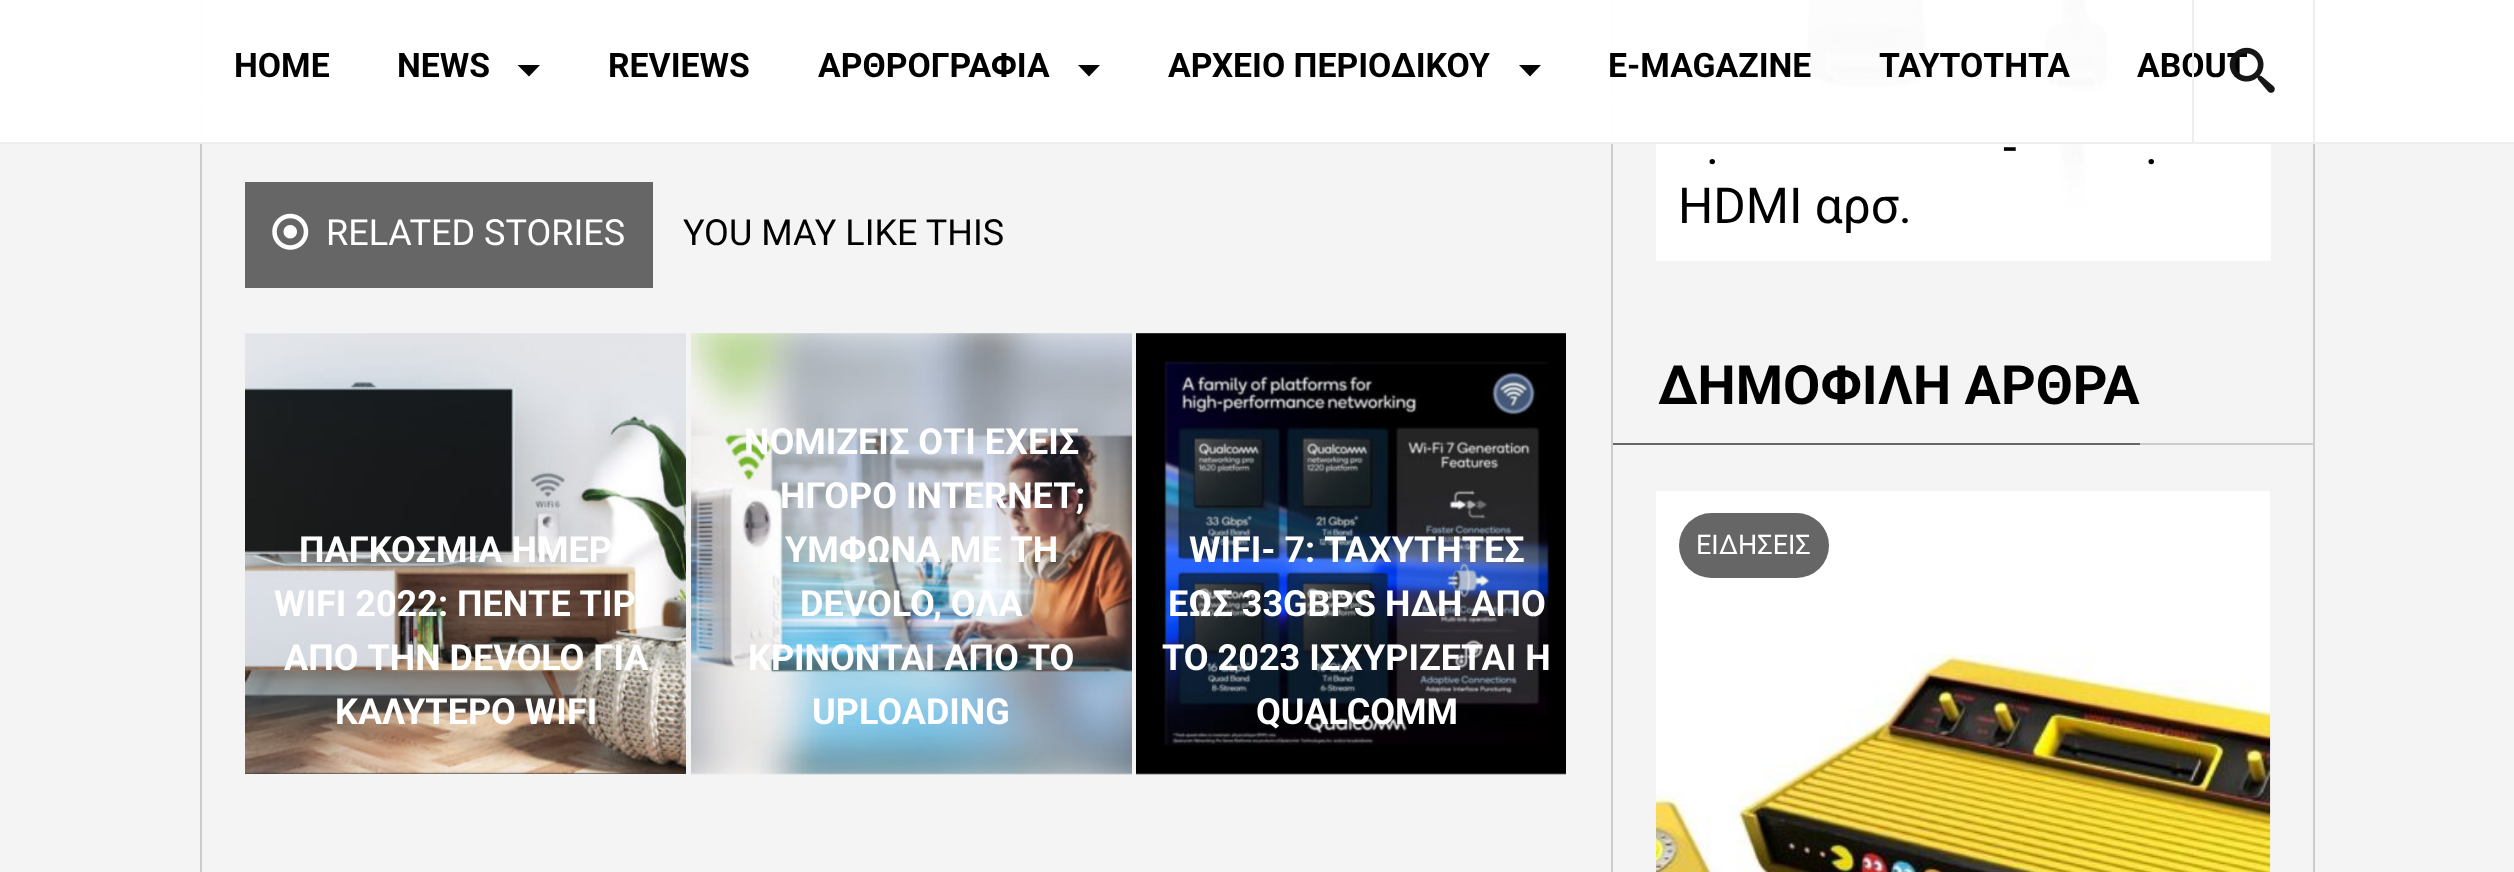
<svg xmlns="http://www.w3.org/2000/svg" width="2514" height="872">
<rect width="100%" height="100%" fill="#f4f4f4"/>
<rect x="201" y="-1" width="2113" height="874" fill="none" stroke="#ccc" stroke-width="2"/>
<rect x="203" width="1408" height="104" fill="#eee"/>
<rect x="203" y="101" width="1408" height="2" fill="#ccc"/>
<rect x="1611" width="2" height="872" fill="#ccc"/>
<image x="1656" y="0" width="615" height="261" href="media/6.png"/>
<rect width="2514" height="144" fill="#fffffffa"/>
<rect y="142" width="2514" height="2" fill="#eeeeeefa"/>
<text x="234" y="77" style="font-family:Roboto;font-size:33.75px;font-weight:bold;fill:#000">HOME</text>
<text x="397" y="77" style="font-family:Roboto;font-size:33.75px;font-weight:bold;fill:#000">NEWS</text>
<path d="M517.5 65h22.5l-11 11.5z" fill="#050505"/>
<text x="608" y="77" style="font-family:Roboto;font-size:33.75px;font-weight:bold;fill:#000">REVIEWS</text>
<text x="818" y="77" style="font-family:Roboto;font-size:33.75px;font-weight:bold;fill:#000">ΑΡΘΡΟΓΡΑΦΙΑ</text>
<path d="M1078 65h22l-11 11.5z" fill="#050505"/>
<text x="1168" y="77" style="font-family:Roboto;font-size:33.75px;font-weight:bold;fill:#000">ΑΡΧΕΙΟ ΠΕΡΙΟΔΙΚΟΥ</text>
<path d="M1519 65h22l-11 11.5z" fill="#050505"/>
<text x="1608" y="77" style="font-family:Roboto;font-size:33.75px;font-weight:bold;fill:#000">E-MAGAZINE</text>
<text x="1879" y="77" style="font-family:Roboto;font-size:33.75px;font-weight:bold;fill:#000">ΤΑΥΤΟΤΗΤΑ</text>
<text x="2137" y="77" style="font-family:Roboto;font-size:33.75px;font-weight:bold;fill:#000">ABOUT</text>
<rect x="2313" width="2" height="142" fill="#ededed"/>
<rect x="2192" width="2" height="142" fill="#eeeeeefa"/>
<image x="2229" y="47" width="46" height="46" href="media/1.png"/>
<rect x="245" y="182" width="408" height="106" fill="#666"/>
<image x="272" y="213" width="37" height="37" href="media/2.png"/>
<text x="326" y="245" style="font-family:Roboto;font-size:36px;fill:#fff">RELATED STORIES</text>
<text x="683" y="245" style="font-family:Roboto;font-size:36px;fill:#000">YOU MAY LIKE THIS</text>
<image x="245" y="333" width="441" height="441" href="media/3.png"/>
<text x="299" y="562" style="font-family:Roboto;font-size:36px;font-weight:bold;fill:#fff">ΠΑΓΚΟΣΜΙΑ ΗΜΕΡ</text>
<text x="274" y="616" style="font-family:Roboto;font-size:36px;font-weight:bold;fill:#fff">WIFI 2022: ΠΕΝΤΕ TIP</text>
<text x="284" y="670" style="font-family:Roboto;font-size:36px;font-weight:bold;fill:#fff">ΑΠΟ ΤΗΝ DEVOLO ΓΙΑ</text>
<text x="335" y="724" style="font-family:Roboto;font-size:36px;font-weight:bold;fill:#fff">ΚΑΛΥΤΕΡΟ WIFI</text>
<image x="691" y="333" width="441" height="442" href="media/4.png"/>
<text x="744" y="454" style="font-family:Roboto;font-size:36px;font-weight:bold;fill:#fff">ΝΟΜΙΖΕΙΣ ΟΤΙ ΕΧΕΙΣ</text>
<text x="780" y="508" style="font-family:Roboto;font-size:36px;font-weight:bold;fill:#fff">ΗΓΟΡΟ INTERNET;</text>
<text x="785" y="562" style="font-family:Roboto;font-size:36px;font-weight:bold;fill:#fff">ΥΜΦΩΝΑ ΜΕ ΤΗ</text>
<text x="800" y="616" style="font-family:Roboto;font-size:36px;font-weight:bold;fill:#fff">DEVOLO, ΟΛΑ</text>
<text x="748" y="670" style="font-family:Roboto;font-size:36px;font-weight:bold;fill:#fff">ΚΡΙΝΟΝΤΑΙ ΑΠΟ ΤΟ</text>
<text x="812" y="724" style="font-family:Roboto;font-size:36px;font-weight:bold;fill:#fff">UPLOADING</text>
<image x="1136" y="333" width="430" height="442" href="media/5.png"/>
<text x="1189" y="562" style="font-family:Roboto;font-size:36px;font-weight:bold;fill:#fff">WIFI- 7: ΤΑΧΥΤΗΤΕΣ</text>
<text x="1168" y="616" style="font-family:Roboto;font-size:36px;font-weight:bold;fill:#fff">ΕΩΣ 33GBPS ΗΔΗ ΑΠΟ</text>
<text x="1162" y="670" style="font-family:Roboto;font-size:36px;font-weight:bold;fill:#fff">ΤΟ 2023 ΙΣΧΥΡΙΖΕΤΑΙ Η</text>
<text x="1256" y="724" style="font-family:Roboto;font-size:36px;font-weight:bold;fill:#fff">QUALCOMM</text>
<text x="2003" y="164" style="font-family:Roboto;font-size:49.5px;fill:#000">-</text>
<text x="1706" y="164" style="font-family:Roboto;font-size:49.5px;fill:#000">.</text>
<text x="2145" y="164" style="font-family:Roboto;font-size:49.5px;fill:#000">.</text>
<text x="1678" y="223" style="font-family:Roboto;font-size:49.5px;fill:#000">HDMI αρσ.</text>
<rect x="2140" y="443" width="175" height="2" fill="#ccc"/>
<rect x="1613" y="443" width="527" height="2" fill="#666"/>
<text x="1658" y="404" style="font-family:Roboto;font-size:54px;font-weight:bold;fill:#000">ΔΗΜΟΦΙΛΗ ΑΡΘΡΑ</text>
<image x="1656" y="491" width="615" height="381" href="media/7.png"/>
<rect x="1679" y="513" width="150" height="65" rx="32.5" fill="#666"/>
<text x="1696" y="554" style="font-family:Roboto;font-size:27px;fill:#fff">ΕΙΔΗΣΕΙΣ</text>
</svg>
